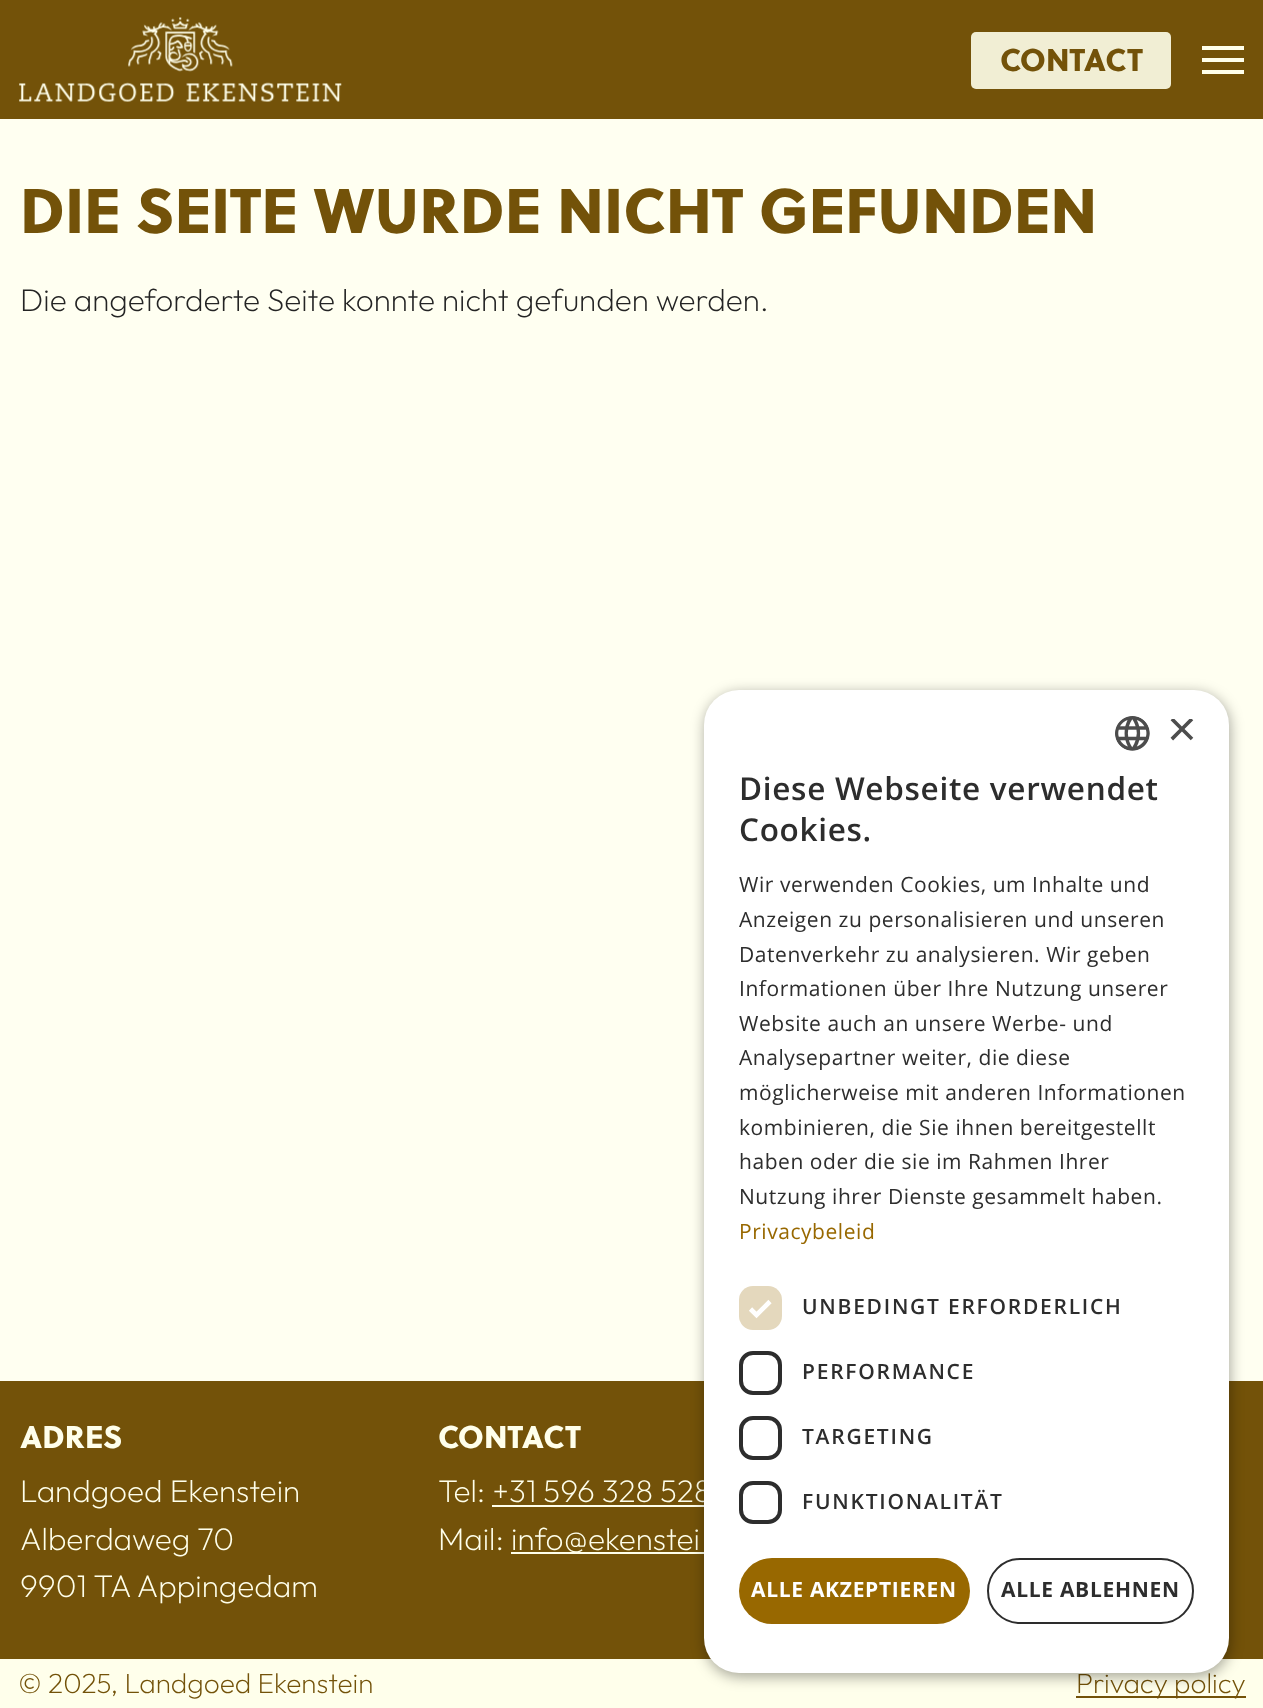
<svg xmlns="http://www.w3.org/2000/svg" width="1263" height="1708">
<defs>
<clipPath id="clip1"><rect x="1167" y="719" width="27" height="27"/></clipPath>
</defs>
<rect width="100%" height="100%" fill="#fffff1"/>
<rect width="1263" height="119" fill="#735209"/>
<image x="19" y="17" width="323" height="85" href="media/1.png"/>
<rect x="971" y="32" width="200" height="57" rx="5" fill="#f1eed4"/>
<text x="1000" y="71" style="font-family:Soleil;font-size:31.5px;font-weight:800;fill:#735209">CONTACT</text>
<rect x="1202" y="46" width="42" height="4" fill="#ffffeb"/>
<rect x="1202" y="58" width="42" height="4" fill="#ffffeb"/>
<rect x="1202" y="70" width="42" height="4" fill="#ffffeb"/>
<text x="20" y="233" style="font-family:Soleil;font-size:63px;font-weight:800;fill:#735209">DIE SEITE WURDE NICHT GEFUNDEN</text>
<text x="20" y="311" style="font-family:Outfit;font-size:31.5px;font-weight:100;fill:#242424">Die angeforderte Seite konnte nicht gefunden werden.</text>
<rect y="1381" width="1263" height="278" fill="#735209"/>
<text x="20" y="1448" style="font-family:Soleil;font-size:31.5px;font-weight:800;fill:#ffffeb">ADRES</text>
<text x="20" y="1502" style="font-family:Outfit;font-size:31.5px;font-weight:100;fill:#ffffeb">Landgoed Ekenstein</text>
<text x="20" y="1550" style="font-family:Outfit;font-size:31.5px;font-weight:100;fill:#ffffeb">Alberdaweg 70</text>
<text x="20" y="1597" style="font-family:Outfit;font-size:31.5px;font-weight:100;fill:#ffffeb">9901 TA Appingedam</text>
<text x="438" y="1448" style="font-family:Soleil;font-size:31.5px;font-weight:800;fill:#ffffeb">CONTACT</text>
<text x="438" y="1502" style="font-family:Outfit;font-size:31.5px;font-weight:100;fill:#ffffeb">Tel: +31 596 328 528</text>
<rect x="492" y="1505" width="220" height="2" fill="#ffffeb"/>
<text x="438" y="1550" style="font-family:Outfit;font-size:31.5px;font-weight:100;fill:#ffffeb">Mail:</text>
<rect x="511" y="1552" width="193" height="2" fill="#ffffeb"/>
<text x="511" y="1550" style="font-family:Outfit;font-size:31.5px;font-weight:100;fill:#ffffeb">info@ekenstei</text>
<rect y="1659" width="1263" height="49" fill="#ffffeb"/>
<text x="18" y="1693" style="font-family:Outfit;font-size:28px;font-weight:100;fill:#735209">© 2025, Landgoed Ekenstein</text>
<rect x="1076" y="1696" width="170" height="2" fill="#735209"/>
<text x="1076" y="1693" style="font-family:Outfit;font-size:28px;font-weight:100;fill:#735209">Privacy policy</text>
<rect x="705" y="693" width="525" height="984" rx="35" fill="#00000059" filter="blur(7px)"/>
<rect x="704" y="690" width="525" height="983" rx="35" fill="#fff"/>
<image x="1115" y="716" width="35" height="35" href="media/2.png"/>
<g clip-path="url(#clip1)">
<text x="1167" y="746" style="font-family:Liberation Sans;font-size:51px;fill:#4d4d4d">×</text>
</g>
<text x="739" y="800" style="font-family:Open Sans;font-size:31.5px;font-weight:600;letter-spacing:0.7px;fill:#2d2d2d">Diese Webseite verwendet</text>
<text x="739" y="841" style="font-family:Open Sans;font-size:31.5px;font-weight:600;letter-spacing:0.7px;fill:#2d2d2d">Cookies.</text>
<text x="739" y="892" style="font-family:Open Sans;font-size:21px;letter-spacing:0.55px;fill:#2d2d2d">Wir verwenden Cookies, um Inhalte und</text>
<text x="739" y="927" style="font-family:Open Sans;font-size:21px;letter-spacing:0.55px;fill:#2d2d2d">Anzeigen zu personalisieren und unseren</text>
<text x="739" y="962" style="font-family:Open Sans;font-size:21px;letter-spacing:0.55px;fill:#2d2d2d">Datenverkehr zu analysieren. Wir geben</text>
<text x="739" y="996" style="font-family:Open Sans;font-size:21px;letter-spacing:0.55px;fill:#2d2d2d">Informationen über Ihre Nutzung unserer</text>
<text x="739" y="1031" style="font-family:Open Sans;font-size:21px;letter-spacing:0.55px;fill:#2d2d2d">Website auch an unsere Werbe- und</text>
<text x="739" y="1065" style="font-family:Open Sans;font-size:21px;letter-spacing:0.55px;fill:#2d2d2d">Analysepartner weiter, die diese</text>
<text x="739" y="1100" style="font-family:Open Sans;font-size:21px;letter-spacing:0.55px;fill:#2d2d2d">möglicherweise mit anderen Informationen</text>
<text x="739" y="1135" style="font-family:Open Sans;font-size:21px;letter-spacing:0.55px;fill:#2d2d2d">kombinieren, die Sie ihnen bereitgestellt</text>
<text x="739" y="1169" style="font-family:Open Sans;font-size:21px;letter-spacing:0.55px;fill:#2d2d2d">haben oder die sie im Rahmen Ihrer</text>
<text x="739" y="1204" style="font-family:Open Sans;font-size:21px;letter-spacing:0.55px;fill:#2d2d2d">Nutzung ihrer Dienste gesammelt haben.</text>
<text x="739" y="1239" style="font-family:Open Sans;font-size:21px;letter-spacing:0.55px;fill:#986800">Privacybeleid</text>
<rect x="739" y="1286" width="43" height="44" rx="14" fill="#e4d8bd"/>
<path d="M750.5 1309l6 6l13.5-13.5" fill="none" stroke="#fff" stroke-width="4.6"/>
<text x="802" y="1314" style="font-family:Open Sans;font-size:21px;font-weight:600;letter-spacing:1.75px;fill:#2d2d2d">UNBEDINGT ERFORDERLICH</text>
<rect x="741" y="1353" width="39" height="40" rx="12" fill="none" stroke="#2d2d2d" stroke-width="4"/>
<text x="802" y="1379" style="font-family:Open Sans;font-size:21px;font-weight:600;letter-spacing:1.75px;fill:#2d2d2d">PERFORMANCE</text>
<rect x="741" y="1418" width="39" height="40" rx="12" fill="none" stroke="#2d2d2d" stroke-width="4"/>
<text x="802" y="1444" style="font-family:Open Sans;font-size:21px;font-weight:600;letter-spacing:1.75px;fill:#2d2d2d">TARGETING</text>
<rect x="741" y="1483" width="39" height="39" rx="12" fill="none" stroke="#2d2d2d" stroke-width="4"/>
<text x="802" y="1509" style="font-family:Open Sans;font-size:21px;font-weight:600;letter-spacing:1.75px;fill:#2d2d2d">FUNKTIONALITÄT</text>
<rect x="739" y="1558" width="231" height="66" rx="33" fill="#986800"/>
<text x="751" y="1597" style="font-family:Open Sans;font-size:21px;font-weight:bold;letter-spacing:0.7px;fill:#fff">ALLE AKZEPTIEREN</text>
<rect x="988" y="1559" width="205" height="64" rx="32" fill="none" stroke="#2d2d2d" stroke-width="2"/>
<text x="1001" y="1597" style="font-family:Open Sans;font-size:21px;font-weight:bold;letter-spacing:0.7px;fill:#2d2d2d">ALLE ABLEHNEN</text>
</svg>
